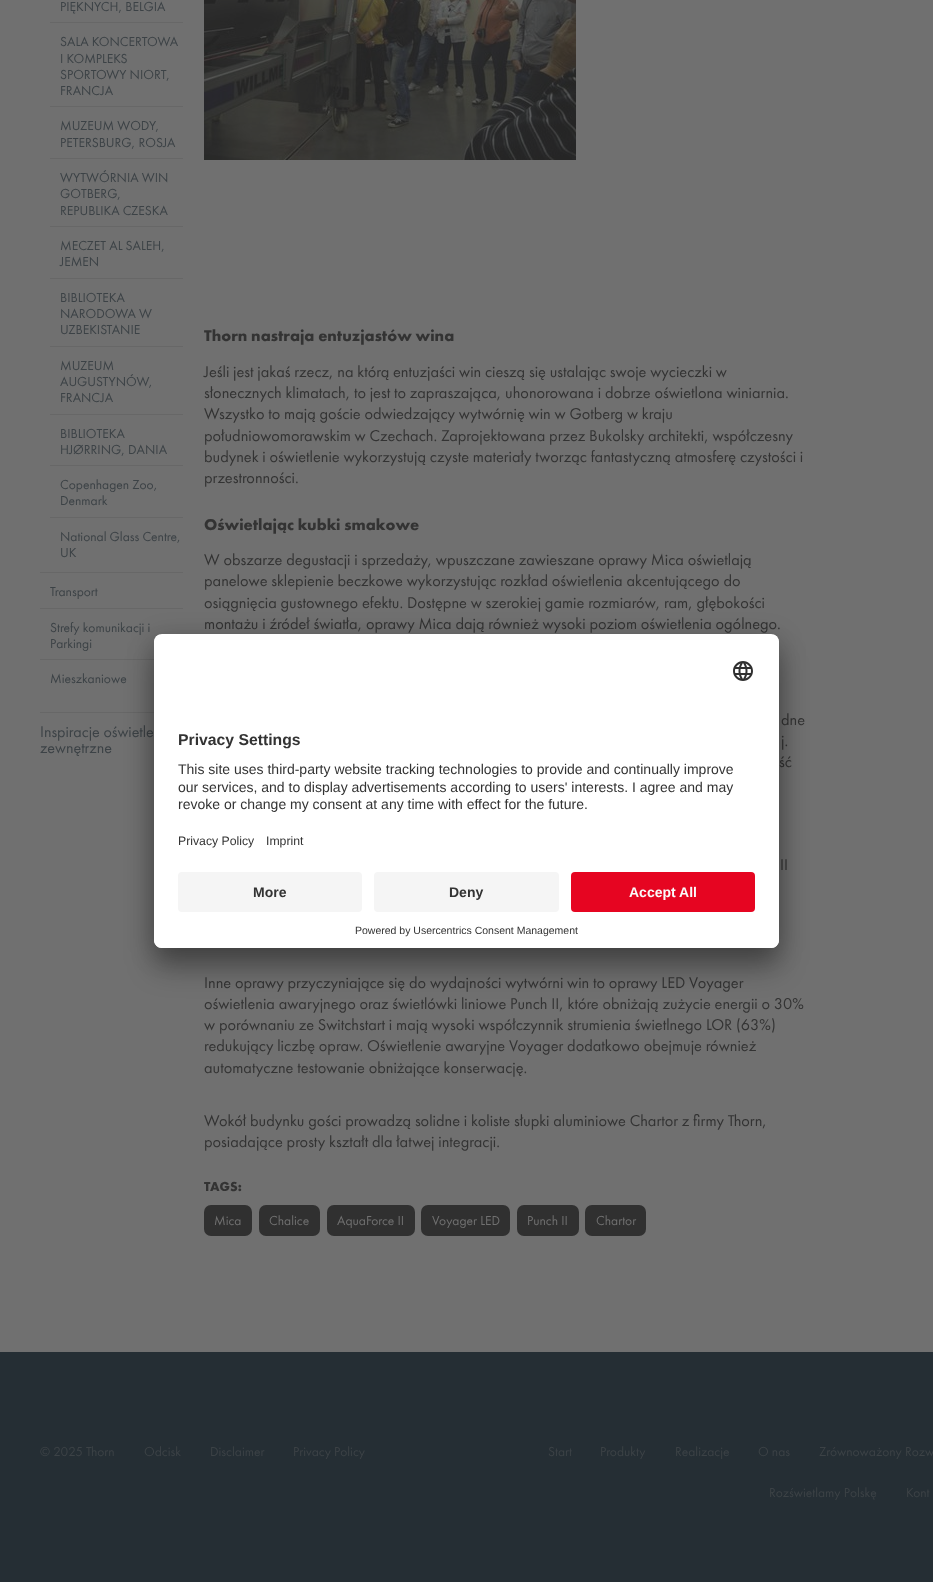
<svg xmlns="http://www.w3.org/2000/svg" width="933" height="1582">
<defs>
<clipPath id="clip1"><rect x="154" y="634" width="625" height="314" rx="8"/></clipPath>
<clipPath id="clip2"><path d="M162 634h609c4.5 0 8 3.5 8 8v222h-625v-222c0-4.5 3.5-8 8-8z"/></clipPath>
</defs>
<rect width="100%" height="100%" fill="#252e34"/>
<rect width="933" height="1352" fill="#707070"/>
<text x="60" y="11" style="font-family:Futura PT;font-size:13.5px;fill:#3c4246">PIĘKNYCH, BELGIA</text>
<rect x="50" y="22" width="133" height="1" fill="#676767"/>
<text x="60" y="46" style="font-family:Futura PT;font-size:13.5px;fill:#3c4246">SALA KONCERTOWA</text>
<text x="60" y="63" style="font-family:Futura PT;font-size:13.5px;fill:#3c4246">I KOMPLEKS</text>
<text x="60" y="79" style="font-family:Futura PT;font-size:13.5px;fill:#3c4246">SPORTOWY NIORT,</text>
<text x="60" y="95" style="font-family:Futura PT;font-size:13.5px;fill:#3c4246">FRANCJA</text>
<rect x="50" y="106" width="133" height="1" fill="#676767"/>
<text x="60" y="130" style="font-family:Futura PT;font-size:13.5px;fill:#3c4246">MUZEUM WODY,</text>
<text x="60" y="147" style="font-family:Futura PT;font-size:13.5px;fill:#3c4246">PETERSBURG, ROSJA</text>
<rect x="50" y="158" width="133" height="1" fill="#676767"/>
<text x="60" y="182" style="font-family:Futura PT;font-size:13.5px;fill:#3c4246">WYTWÓRNIA WIN</text>
<text x="60" y="198" style="font-family:Futura PT;font-size:13.5px;fill:#3c4246">GOTBERG,</text>
<text x="60" y="215" style="font-family:Futura PT;font-size:13.5px;fill:#3c4246">REPUBLIKA CZESKA</text>
<rect x="50" y="226" width="133" height="1" fill="#676767"/>
<text x="60" y="250" style="font-family:Futura PT;font-size:13.5px;fill:#3c4246">MECZET AL SALEH,</text>
<text x="60" y="266" style="font-family:Futura PT;font-size:13.5px;fill:#3c4246">JEMEN</text>
<rect x="50" y="278" width="133" height="1" fill="#676767"/>
<text x="60" y="302" style="font-family:Futura PT;font-size:13.5px;fill:#3c4246">BIBLIOTEKA</text>
<text x="60" y="318" style="font-family:Futura PT;font-size:13.5px;fill:#3c4246">NARODOWA W</text>
<text x="60" y="334" style="font-family:Futura PT;font-size:13.5px;fill:#3c4246">UZBEKISTANIE</text>
<rect x="50" y="346" width="133" height="1" fill="#676767"/>
<text x="60" y="370" style="font-family:Futura PT;font-size:13.5px;fill:#3c4246">MUZEUM</text>
<text x="60" y="386" style="font-family:Futura PT;font-size:13.5px;fill:#3c4246">AUGUSTYNÓW,</text>
<text x="60" y="402" style="font-family:Futura PT;font-size:13.5px;fill:#3c4246">FRANCJA</text>
<rect x="50" y="414" width="133" height="1" fill="#676767"/>
<text x="60" y="438" style="font-family:Futura PT;font-size:13.5px;fill:#3c4246">BIBLIOTEKA</text>
<text x="60" y="454" style="font-family:Futura PT;font-size:13.5px;fill:#3c4246">HJØRRING, DANIA</text>
<rect x="50" y="465" width="133" height="1" fill="#676767"/>
<text x="60" y="489" style="font-family:Futura PT;font-size:13.5px;fill:#3c4246">Copenhagen Zoo,</text>
<text x="60" y="505" style="font-family:Futura PT;font-size:13.5px;fill:#3c4246">Denmark</text>
<rect x="50" y="517" width="133" height="1" fill="#676767"/>
<text x="60" y="541" style="font-family:Futura PT;font-size:13.5px;fill:#3c4246">National Glass Centre,</text>
<text x="60" y="557" style="font-family:Futura PT;font-size:13.5px;fill:#3c4246">UK</text>
<rect x="40" y="572" width="143" height="1" fill="#676767"/>
<text x="50" y="596" style="font-family:Futura PT;font-size:13.5px;fill:#3c4246">Transport</text>
<rect x="40" y="608" width="143" height="1" fill="#676767"/>
<text x="50" y="632" style="font-family:Futura PT;font-size:13.5px;fill:#3c4246">Strefy komunikacji i</text>
<text x="50" y="648" style="font-family:Futura PT;font-size:13.5px;fill:#3c4246">Parkingi</text>
<rect x="40" y="659" width="114" height="1" fill="#676767"/>
<text x="50" y="683" style="font-family:Futura PT;font-size:13.5px;fill:#3c4246">Mieszkaniowe</text>
<rect x="40" y="712" width="114" height="1" fill="#676767"/>
<text x="40" y="737" style="font-family:Futura PT;font-size:16px;fill:#3c4246">Inspiracje oświetle</text>
<text x="40" y="753" style="font-family:Futura PT;font-size:16px;fill:#3c4246">zewnętrzne</text>
<image x="204" y="0" width="372" height="160" href="media/1.png"/>
<text x="204" y="341" style="font-family:Futura PT;font-size:16.3px;font-weight:bold;fill:#333">Thorn nastraja entuzjastów wina</text>
<text x="204" y="377" style="font-family:Futura PT;font-size:16.3px;fill:#333">Jeśli jest jakaś rzecz, na którą entuzjaści win cieszą się ustalając swoje wycieczki w</text>
<text x="204" y="398" style="font-family:Futura PT;font-size:16.3px;fill:#333">słonecznych klimatach, to jest to zapraszająca, uhonorowana i dobrze oświetlona winiarnia.</text>
<text x="204" y="419" style="font-family:Futura PT;font-size:16.3px;fill:#333">Wszystko to mają goście odwiedzający wytwórnię win w Gotberg w kraju</text>
<text x="204" y="441" style="font-family:Futura PT;font-size:16.3px;fill:#333">południowomorawskim w Czechach. Zaprojektowana przez Bukolsky architekti, współczesny</text>
<text x="204" y="462" style="font-family:Futura PT;font-size:16.3px;fill:#333">budynek i oświetlenie wykorzystują czyste materiały tworząc fantastyczną atmosferę czystości i</text>
<text x="204" y="483" style="font-family:Futura PT;font-size:16.3px;fill:#333">przestronności.</text>
<text x="204" y="530" style="font-family:Futura PT;font-size:16.3px;font-weight:bold;fill:#333">Oświetlając kubki smakowe</text>
<text x="204" y="565" style="font-family:Futura PT;font-size:16.3px;fill:#333">W obszarze degustacji i sprzedaży, wpuszczane zawieszane oprawy Mica oświetlają</text>
<text x="204" y="586" style="font-family:Futura PT;font-size:16.3px;fill:#333">panelowe sklepienie beczkowe wykorzystując rozkład oświetlenia akcentującego do</text>
<text x="204" y="608" style="font-family:Futura PT;font-size:16.3px;fill:#333">osiągnięcia gustownego efektu. Dostępne w szerokiej gamie rozmiarów, ram, głębokości</text>
<text x="204" y="629" style="font-family:Futura PT;font-size:16.3px;fill:#333">montażu i źródeł światła, oprawy Mica dają również wysoki poziom oświetlenia ogólnego.</text>
<text x="781" y="725" style="font-family:Futura PT;font-size:16.3px;fill:#333">dne</text>
<text x="781" y="746" style="font-family:Futura PT;font-size:16.3px;fill:#333">j.</text>
<text x="779" y="767" style="font-family:Futura PT;font-size:16.3px;fill:#333">ść</text>
<text x="780" y="870" style="font-family:Futura PT;font-size:16.3px;fill:#333">II</text>
<text x="204" y="988" style="font-family:Futura PT;font-size:16.3px;fill:#333">Inne oprawy przyczyniające się do wydajności wytwórni win to oprawy LED Voyager</text>
<text x="204" y="1009" style="font-family:Futura PT;font-size:16.3px;fill:#333">oświetlenia awaryjnego oraz świetlówki liniowe Punch II, które obniżają zużycie energii o 30%</text>
<text x="204" y="1030" style="font-family:Futura PT;font-size:16.3px;fill:#333">w porównaniu ze Switchstart i mają wysoki współczynnik strumienia świetlnego LOR (63%)</text>
<text x="204" y="1051" style="font-family:Futura PT;font-size:16.3px;fill:#333">redukujący liczbę opraw. Oświetlenie awaryjne Voyager dodatkowo obejmuje również</text>
<text x="204" y="1073" style="font-family:Futura PT;font-size:16.3px;fill:#333">automatyczne testowanie obniżające konserwację.</text>
<text x="204" y="1126" style="font-family:Futura PT;font-size:16.3px;fill:#333">Wokół budynku gości prowadzą solidne i koliste słupki aluminiowe Chartor z firmy Thorn,</text>
<text x="204" y="1147" style="font-family:Futura PT;font-size:16.3px;fill:#333">posiadające prosty kształt dla łatwej integracji.</text>
<text x="204" y="1191" style="font-family:Futura PT;font-size:13.5px;font-weight:bold;fill:#333">TAGS:</text>
<rect x="204" y="1205" width="48" height="31" rx="7" fill="#303030"/>
<text x="214" y="1225" style="font-family:Futura PT;font-size:13.5px;fill:#707070">Mica</text>
<rect x="259" y="1205" width="61" height="31" rx="7" fill="#303030"/>
<text x="269" y="1225" style="font-family:Futura PT;font-size:13.5px;fill:#707070">Chalice</text>
<rect x="327" y="1205" width="88" height="31" rx="7" fill="#303030"/>
<text x="337" y="1225" style="font-family:Futura PT;font-size:13.5px;fill:#707070">AquaForce II</text>
<rect x="421" y="1205" width="89" height="31" rx="7" fill="#303030"/>
<text x="432" y="1225" style="font-family:Futura PT;font-size:13.5px;fill:#707070">Voyager LED</text>
<rect x="517" y="1205" width="62" height="31" rx="7" fill="#303030"/>
<text x="527" y="1225" style="font-family:Futura PT;font-size:13.5px;fill:#707070">Punch II</text>
<rect x="585" y="1205" width="61" height="31" rx="7" fill="#303030"/>
<text x="596" y="1225" style="font-family:Futura PT;font-size:13.5px;fill:#707070">Chartor</text>
<text x="40" y="1456" style="font-family:Futura PT;font-size:13.5px;fill:#3c4246">© 2025 Thorn</text>
<text x="144" y="1456" style="font-family:Futura PT;font-size:13.5px;fill:#3c4246">Odcisk</text>
<text x="210" y="1456" style="font-family:Futura PT;font-size:13.5px;fill:#3c4246">Disclaimer</text>
<text x="293" y="1456" style="font-family:Futura PT;font-size:13.5px;fill:#3c4246">Privacy Policy</text>
<text x="548" y="1456" style="font-family:Futura PT;font-size:13.5px;fill:#3c4246">Start</text>
<text x="600" y="1456" style="font-family:Futura PT;font-size:13.5px;fill:#3c4246">Produkty</text>
<text x="675" y="1456" style="font-family:Futura PT;font-size:13.5px;fill:#3c4246">Realizacje</text>
<text x="758" y="1456" style="font-family:Futura PT;font-size:13.5px;fill:#3c4246">O nas</text>
<text x="819" y="1456" style="font-family:Futura PT;font-size:13.5px;fill:#3c4246">Zrównoważony Rozw</text>
<text x="769" y="1497" style="font-family:Futura PT;font-size:13.5px;fill:#3c4246">Rozświetlamy Polskę</text>
<text x="906" y="1497" style="font-family:Futura PT;font-size:13.5px;fill:#3c4246">Kont</text>
<rect x="154" y="654" width="625" height="314" rx="8" fill="#0000004d" filter="blur(14px)"/>
<rect x="154" y="639" width="625" height="314" rx="8" fill="#00000038" filter="blur(13px)"/>
<rect x="154" y="634" width="625" height="314" rx="8" fill="#fff"/>
<g clip-path="url(#clip1)">
<g clip-path="url(#clip2)">
<rect x="154" y="635" width="625" height="229" fill="#fff"/>
</g>
</g>
<image x="733" y="661" width="20" height="20" href="media/2.png"/>
<text x="178" y="745" style="font-family:Liberation Sans;font-size:15.75px;font-weight:bold;fill:#333">Privacy Settings</text>
<text x="178" y="774" style="font-family:Liberation Sans;font-size:14px;fill:#333">This site uses third-party website tracking technologies to provide and continually improve</text>
<text x="178" y="792" style="font-family:Liberation Sans;font-size:14px;fill:#333">our services, and to display advertisements according to users' interests. I agree and may</text>
<text x="178" y="809" style="font-family:Liberation Sans;font-size:14px;fill:#333">revoke or change my consent at any time with effect for the future.</text>
<text x="178" y="845" style="font-family:Liberation Sans;font-size:12.25px;fill:#333">Privacy Policy</text>
<text x="266" y="845" style="font-family:Liberation Sans;font-size:12.25px;fill:#333">Imprint</text>
<path d="M154 864h625v76c0 4.5-3.5 8-8 8h-609c-4.5 0-8-3.5-8-8z" fill="#fff"/>
<rect x="178" y="872" width="184" height="40" rx="4" fill="#f5f5f5"/>
<text x="253" y="897" style="font-family:Liberation Sans;font-size:14px;font-weight:bold;fill:#333">More</text>
<rect x="374" y="872" width="185" height="40" rx="4" fill="#f5f5f5"/>
<text x="449" y="897" style="font-family:Liberation Sans;font-size:14px;font-weight:bold;fill:#333">Deny</text>
<rect x="571" y="872" width="184" height="40" rx="4" fill="#e60521"/>
<text x="629" y="897" style="font-family:Liberation Sans;font-size:14px;font-weight:bold;fill:#fafafa">Accept All</text>
<text x="355" y="934" style="font-family:Liberation Sans;font-size:10.5px;fill:#333">Powered by Usercentrics Consent Management</text>
</svg>
